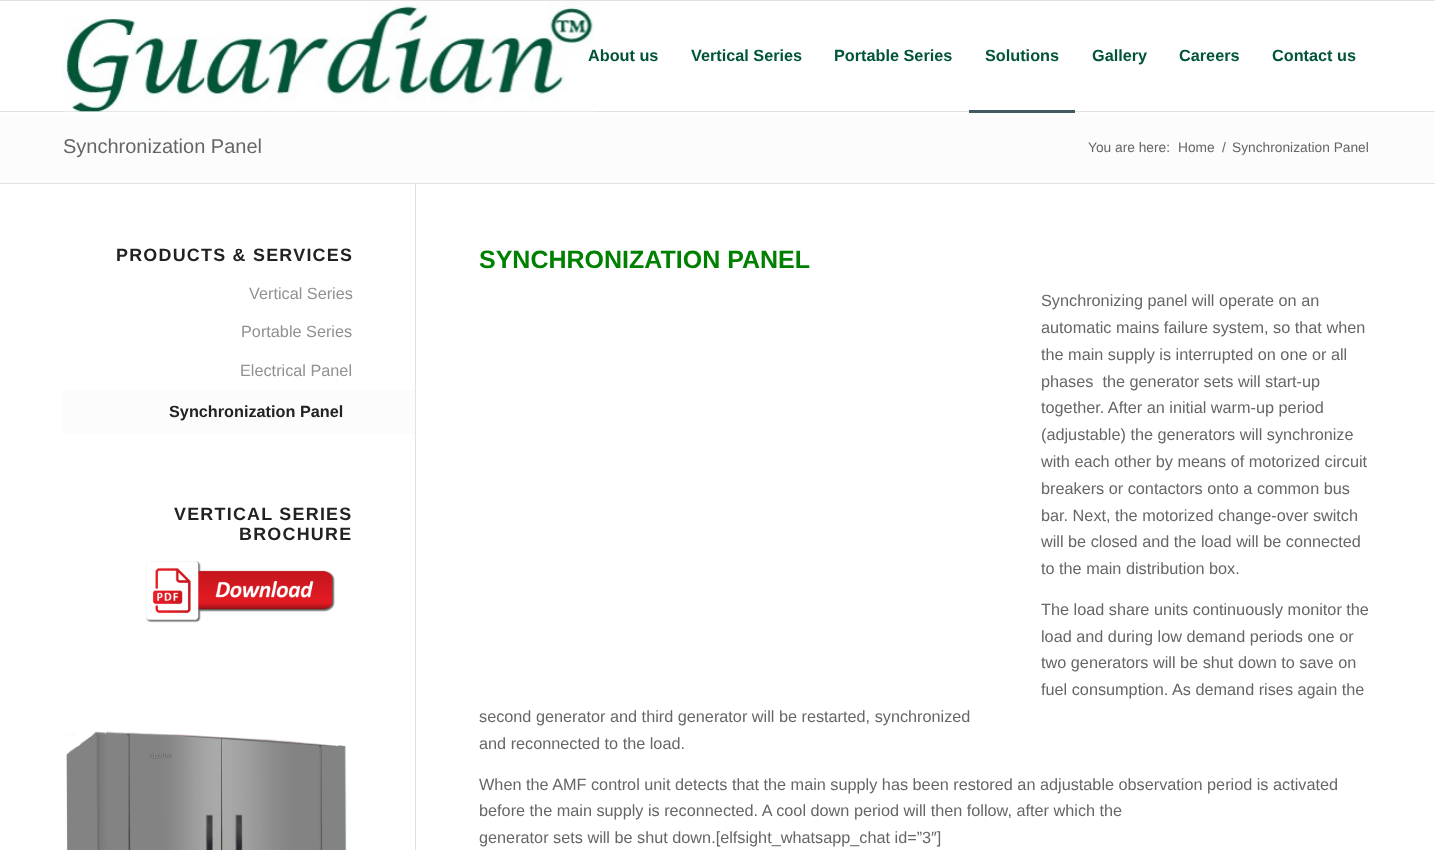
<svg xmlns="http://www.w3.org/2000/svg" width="1435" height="850">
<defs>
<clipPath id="clip1"><path d="M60 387h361v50h-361zm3 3h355v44h-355z" clip-rule="evenodd"/></clipPath>
</defs>
<rect width="100%" height="100%" fill="#fff"/>
<rect width="1435" height="1" fill="#e1e1e1"/>
<rect y="111" width="1435" height="1" fill="#e1e1e1"/>
<image x="63" y="1" width="532" height="111" href="media/1.png"/>
<text x="588" y="61" style="font-family:Liberation Sans;font-size:16.25px;font-weight:bold;fill:#005437">About us</text>
<text x="691" y="61" style="font-family:Liberation Sans;font-size:16.25px;font-weight:bold;fill:#005437">Vertical Series</text>
<text x="834" y="61" style="font-family:Liberation Sans;font-size:16.25px;font-weight:bold;fill:#005437">Portable Series</text>
<text x="985" y="61" style="font-family:Liberation Sans;font-size:16.25px;font-weight:bold;fill:#005437">Solutions</text>
<rect x="969" y="110" width="106" height="3" fill="#435960"/>
<text x="1092" y="61" style="font-family:Liberation Sans;font-size:16.25px;font-weight:bold;fill:#005437">Gallery</text>
<text x="1179" y="61" style="font-family:Liberation Sans;font-size:16.25px;font-weight:bold;fill:#005437">Careers</text>
<text x="1272" y="61" style="font-family:Liberation Sans;font-size:16.25px;font-weight:bold;fill:#005437">Contact us</text>
<rect y="113" width="1435" height="70" fill="#fcfcfc"/>
<text x="63" y="153" style="font-family:Liberation Sans;font-size:20px;fill:#666">Synchronization Panel</text>
<text x="1088" y="152" style="font-family:Liberation Sans;font-size:13.75px;fill:#666">You are here:</text>
<text x="1178" y="152" style="font-family:Liberation Sans;font-size:13.75px;fill:#666">Home</text>
<text x="1222" y="152" style="font-family:Liberation Sans;font-size:13.75px;fill:#666">/</text>
<text x="1232" y="152" style="font-family:Liberation Sans;font-size:13.75px;fill:#666">Synchronization Panel</text>
<rect y="183" width="1435" height="1" fill="#e1e1e1"/>
<text x="116" y="261" style="font-family:Liberation Sans;font-size:17.9px;font-weight:bold;letter-spacing:1.25px;fill:#222">PRODUCTS &amp; SERVICES</text>
<text x="249" y="299" style="font-family:Liberation Sans;font-size:16.25px;fill:#919191">Vertical Series</text>
<text x="241" y="337" style="font-family:Liberation Sans;font-size:16.25px;fill:#919191">Portable Series</text>
<text x="240" y="376" style="font-family:Liberation Sans;font-size:16.25px;fill:#919191">Electrical Panel</text>
<rect x="415" y="184" width="1" height="666" fill="#e1e1e1"/>
<g clip-path="url(#clip1)">
<rect x="63" y="390" width="355" height="44" fill="#00000033" filter="blur(0.5px)"/>
</g>
<rect x="63" y="390" width="352" height="44" fill="#fcfcfc"/>
<text x="169" y="417" style="font-family:Liberation Sans;font-size:16.25px;font-weight:bold;fill:#222">Synchronization Panel</text>
<text x="174" y="520" style="font-family:Liberation Sans;font-size:17.9px;font-weight:bold;letter-spacing:1.25px;fill:#222">VERTICAL SERIES</text>
<text x="239" y="540" style="font-family:Liberation Sans;font-size:17.9px;font-weight:bold;letter-spacing:1.25px;fill:#222">BROCHURE</text>
<image x="146" y="561" width="189" height="62" href="media/2.png"/>
<image x="66" y="731" width="281" height="119" href="media/3.png"/>
<text x="479" y="268" style="font-family:Liberation Sans;font-size:25px;font-weight:bold;fill:#008000">SYNCHRONIZATION PANEL</text>
<text x="1041" y="306" style="font-family:Liberation Sans;font-size:16.25px;fill:#666">Synchronizing panel will operate on an</text>
<text x="1041" y="333" style="font-family:Liberation Sans;font-size:16.25px;fill:#666">automatic mains failure system, so that when</text>
<text x="1041" y="360" style="font-family:Liberation Sans;font-size:16.25px;fill:#666">the main supply is interrupted on one or all</text>
<text x="1041" y="387" style="font-family:Liberation Sans;font-size:16.25px;fill:#666" xml:space="preserve">phases  the generator sets will start-up</text>
<text x="1041" y="413" style="font-family:Liberation Sans;font-size:16.25px;fill:#666">together. After an initial warm-up period</text>
<text x="1041" y="440" style="font-family:Liberation Sans;font-size:16.25px;fill:#666">(adjustable) the generators will synchronize</text>
<text x="1041" y="467" style="font-family:Liberation Sans;font-size:16.25px;fill:#666">with each other by means of motorized circuit</text>
<text x="1041" y="494" style="font-family:Liberation Sans;font-size:16.25px;fill:#666">breakers or contactors onto a common bus</text>
<text x="1041" y="521" style="font-family:Liberation Sans;font-size:16.25px;fill:#666">bar. Next, the motorized change-over switch</text>
<text x="1041" y="547" style="font-family:Liberation Sans;font-size:16.25px;fill:#666">will be closed and the load will be connected</text>
<text x="1041" y="574" style="font-family:Liberation Sans;font-size:16.25px;fill:#666">to the main distribution box.</text>
<text x="1041" y="615" style="font-family:Liberation Sans;font-size:16.25px;fill:#666">The load share units continuously monitor the</text>
<text x="1041" y="642" style="font-family:Liberation Sans;font-size:16.25px;fill:#666">load and during low demand periods one or</text>
<text x="1041" y="668" style="font-family:Liberation Sans;font-size:16.25px;fill:#666">two generators will be shut down to save on</text>
<text x="1041" y="695" style="font-family:Liberation Sans;font-size:16.25px;fill:#666">fuel consumption. As demand rises again the</text>
<text x="479" y="722" style="font-family:Liberation Sans;font-size:16.25px;fill:#666">second generator and third generator will be restarted, synchronized</text>
<text x="479" y="749" style="font-family:Liberation Sans;font-size:16.25px;fill:#666">and reconnected to the load.</text>
<text x="479" y="790" style="font-family:Liberation Sans;font-size:16.25px;fill:#666">When the AMF control unit detects that the main supply has been restored an adjustable observation period is activated</text>
<text x="479" y="816" style="font-family:Liberation Sans;font-size:16.25px;fill:#666">before the main supply is reconnected. A cool down period will then follow, after which the</text>
<text x="479" y="843" style="font-family:Liberation Sans;font-size:16.25px;fill:#666">generator sets will be shut down.[elfsight_whatsapp_chat id=”3″]</text>
</svg>
